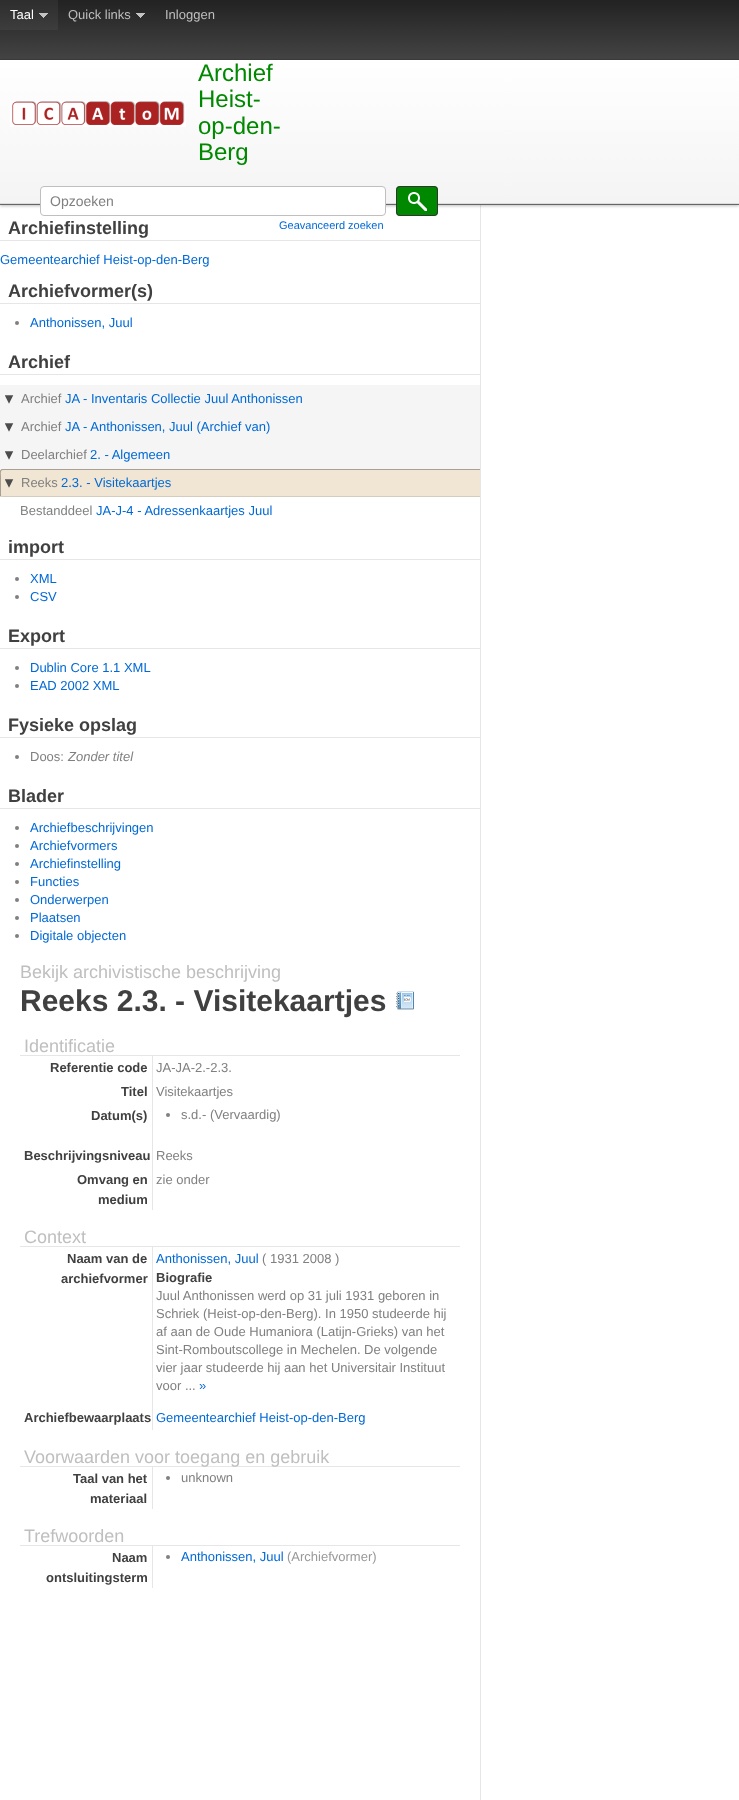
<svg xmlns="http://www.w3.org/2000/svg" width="739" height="1800">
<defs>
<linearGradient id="g1" gradientUnits="userSpaceOnUse" x1="370" y1="0" x2="370" y2="60"><stop offset="0" stop-color="#222"/><stop offset="1" stop-color="#444"/></linearGradient>
<linearGradient id="g2" gradientUnits="userSpaceOnUse" x1="370" y1="0" x2="370" y2="60"><stop offset="0" stop-color="#2d2d2d"/><stop offset="1" stop-color="#4d4d4d"/></linearGradient>
<linearGradient id="g3" gradientUnits="userSpaceOnUse" x1="370" y1="60" x2="370" y2="204"><stop offset="0" stop-color="#fff"/><stop offset="1" stop-color="#f4f4f4"/></linearGradient>
</defs>
<rect width="100%" height="100%" fill="#fff"/>
<rect x="480" y="205" width="1" height="1595" fill="#e6e6e6"/>
<rect x="480" y="216" width="1" height="1372" fill="#fff"/>
<rect x="480" y="216" width="1" height="1372" fill="#e6e6e6"/>
<rect width="739" height="59" fill="url(#g1)"/>
<rect width="58" height="30" fill="url(#g2)"/>
<rect y="59" width="739" height="1" fill="#3d3d3d"/>
<image x="39" y="13" width="9" height="5" href="media/1.png"/>
<text x="10" y="19" style="font-family:Liberation Sans;font-size:13px;fill:#fff">Taal</text>
<image x="136" y="13" width="9" height="5" href="media/2.png"/>
<text x="68" y="19" style="font-family:Liberation Sans;font-size:13px;fill:#bfbfbf">Quick links</text>
<text x="165" y="19" style="font-family:Liberation Sans;font-size:13px;fill:#bfbfbf">Inloggen</text>
<rect y="61" width="739" height="145" fill="#00000040" filter="blur(1.5px)"/>
<rect y="60" width="739" height="143" fill="url(#g3)"/>
<rect y="203" width="739" height="1" fill="#dcdcdc"/>
<rect y="204" width="739" height="1" fill="#666"/>
<image x="10" y="101" width="176" height="26" href="media/3.png"/>
<text x="198" y="81" style="font-family:Liberation Sans;font-size:24px;fill:#080">Archief</text>
<text x="198" y="107" style="font-family:Liberation Sans;font-size:24px;fill:#080">Heist-</text>
<text x="198" y="134" style="font-family:Liberation Sans;font-size:24px;fill:#080">op-den-</text>
<text x="198" y="160" style="font-family:Liberation Sans;font-size:24px;fill:#080">Berg</text>
<rect x="40.5" y="186.5" width="345" height="29" rx="3.5" fill="#fff" stroke="#bfbfbf"/>
<text x="50" y="206" style="font-family:Liberation Sans;font-size:14px;fill:#808080">Opzoeken</text>
<rect x="396" y="186" width="42" height="30" rx="4" fill="#080"/>
<image x="408" y="192" width="19" height="19" href="media/4.png"/>
<rect x="396.5" y="186.5" width="41" height="29" rx="3.5" fill="none" stroke="#333"/>
<text x="279" y="229" style="font-family:Liberation Sans;font-size:11px;fill:#0069d6">Geavanceerd zoeken</text>
<rect y="240" width="480" height="1" fill="#e6e6e6"/>
<text x="8" y="234" style="font-family:Liberation Sans;font-size:18px;font-weight:bold;fill:#404040">Archiefinstelling</text>
<text x="0" y="264" style="font-family:Liberation Sans;font-size:13px;fill:#0069d6">Gemeentearchief Heist-op-den-Berg</text>
<rect y="303" width="480" height="1" fill="#e6e6e6"/>
<text x="8" y="297" style="font-family:Liberation Sans;font-size:18px;font-weight:bold;fill:#404040">Archiefvormer(s)</text>
<circle cx="17" cy="323" r="2" fill="#808080"/>
<text x="30" y="327" style="font-family:Liberation Sans;font-size:13px;fill:#0069d6">Anthonissen, Juul</text>
<rect y="374" width="480" height="1" fill="#e6e6e6"/>
<text x="8" y="368" style="font-family:Liberation Sans;font-size:18px;font-weight:bold;fill:#404040">Archief</text>
<rect y="385" width="480" height="84" fill="#f5f5f5"/>
<image x="5" y="395" width="9" height="9" href="media/5.png"/>
<text x="21" y="403" style="font-family:Liberation Sans;font-size:13px;fill:#808080">Archief</text>
<text x="65" y="403" style="font-family:Liberation Sans;font-size:13px;fill:#0069d6">JA - Inventaris Collectie Juul Anthonissen</text>
<image x="5" y="423" width="9" height="9" href="media/5.png"/>
<text x="21" y="431" style="font-family:Liberation Sans;font-size:13px;fill:#808080">Archief</text>
<text x="65" y="431" style="font-family:Liberation Sans;font-size:13px;fill:#0069d6">JA - Anthonissen, Juul (Archief van)</text>
<image x="5" y="451" width="9" height="9" href="media/5.png"/>
<text x="21" y="459" style="font-family:Liberation Sans;font-size:13px;fill:#808080">Deelarchief</text>
<text x="90" y="459" style="font-family:Liberation Sans;font-size:13px;fill:#0069d6">2. - Algemeen</text>
<path d="M2 469h478v28h-478c-1 0-2-1-2-2v-24c0-1 1-2 2-2z" fill="#f1e6d4"/>
<path d="M0 494v2l2 1h478v-1h-478c-1 0-2-1-2-2z" fill="#64646433"/>
<path d="M3 470h477v-1h-478c-1 0-2 1-2 2v24c0 1 1 2 1 2v-21c0-1-1-6 2-6z" fill="#0000004d"/>
<image x="5" y="479" width="9" height="9" href="media/6.png"/>
<text x="21" y="487" style="font-family:Liberation Sans;font-size:13px;fill:#808080">Reeks</text>
<text x="61" y="487" style="font-family:Liberation Sans;font-size:13px;fill:#0069d6">2.3. - Visitekaartjes</text>
<text x="20" y="515" style="font-family:Liberation Sans;font-size:13px;fill:#808080">Bestanddeel</text>
<text x="96" y="515" style="font-family:Liberation Sans;font-size:13px;fill:#0069d6">JA-J-4 - Adressenkaartjes Juul</text>
<rect y="559" width="480" height="1" fill="#e6e6e6"/>
<text x="8" y="553" style="font-family:Liberation Sans;font-size:18px;font-weight:bold;fill:#404040">import</text>
<circle cx="17" cy="579" r="2" fill="#808080"/>
<text x="30" y="583" style="font-family:Liberation Sans;font-size:13px;fill:#0069d6">XML</text>
<circle cx="17" cy="597" r="2" fill="#808080"/>
<text x="30" y="601" style="font-family:Liberation Sans;font-size:13px;fill:#0069d6">CSV</text>
<rect y="648" width="480" height="1" fill="#e6e6e6"/>
<text x="8" y="642" style="font-family:Liberation Sans;font-size:18px;font-weight:bold;fill:#404040">Export</text>
<circle cx="17" cy="668" r="2" fill="#808080"/>
<text x="30" y="672" style="font-family:Liberation Sans;font-size:13px;fill:#0069d6">Dublin Core 1.1 XML</text>
<circle cx="17" cy="686" r="2" fill="#808080"/>
<text x="30" y="690" style="font-family:Liberation Sans;font-size:13px;fill:#0069d6">EAD 2002 XML</text>
<rect y="737" width="480" height="1" fill="#e6e6e6"/>
<text x="8" y="731" style="font-family:Liberation Sans;font-size:18px;font-weight:bold;fill:#404040">Fysieke opslag</text>
<circle cx="17" cy="757" r="2" fill="#808080"/>
<text x="30" y="761" style="font-family:Liberation Sans;font-size:13px;fill:#808080">Doos:</text>
<text x="68" y="761" style="font-family:Liberation Sans;font-size:13px;font-style:italic;fill:#808080">Zonder titel</text>
<rect y="808" width="480" height="1" fill="#e6e6e6"/>
<text x="8" y="802" style="font-family:Liberation Sans;font-size:18px;font-weight:bold;fill:#404040">Blader</text>
<circle cx="17" cy="828" r="2" fill="#808080"/>
<text x="30" y="832" style="font-family:Liberation Sans;font-size:13px;fill:#0069d6">Archiefbeschrijvingen</text>
<circle cx="17" cy="846" r="2" fill="#808080"/>
<text x="30" y="850" style="font-family:Liberation Sans;font-size:13px;fill:#0069d6">Archiefvormers</text>
<circle cx="17" cy="864" r="2" fill="#808080"/>
<text x="30" y="868" style="font-family:Liberation Sans;font-size:13px;fill:#0069d6">Archiefinstelling</text>
<circle cx="17" cy="882" r="2" fill="#808080"/>
<text x="30" y="886" style="font-family:Liberation Sans;font-size:13px;fill:#0069d6">Functies</text>
<circle cx="17" cy="900" r="2" fill="#808080"/>
<text x="30" y="904" style="font-family:Liberation Sans;font-size:13px;fill:#0069d6">Onderwerpen</text>
<circle cx="17" cy="918" r="2" fill="#808080"/>
<text x="30" y="922" style="font-family:Liberation Sans;font-size:13px;fill:#0069d6">Plaatsen</text>
<circle cx="17" cy="936" r="2" fill="#808080"/>
<text x="30" y="940" style="font-family:Liberation Sans;font-size:13px;fill:#0069d6">Digitale objecten</text>
<text x="20" y="978" style="font-family:Liberation Sans;font-size:18px;fill:#bfbfbf">Bekijk archivistische beschrijving</text>
<text x="20" y="1011" style="font-family:Liberation Sans;font-size:30px;font-weight:bold;fill:#404040">Reeks 2.3. - Visitekaartjes</text>
<image x="396" y="991" width="18" height="19" href="media/7.png"/>
<rect x="20" y="1055" width="440" height="1" fill="#e6e6e6"/>
<text x="24" y="1052" style="font-family:Liberation Sans;font-size:18px;fill:#bfbfbf">Identificatie</text>
<rect x="152" y="1056" width="1" height="154" fill="#e6e6e6"/>
<text x="50" y="1072" style="font-family:Liberation Sans;font-size:13px;font-weight:bold;fill:#404040">Referentie code</text>
<text x="156" y="1072" style="font-family:Liberation Sans;font-size:13px;fill:#808080">JA-JA-2.-2.3.</text>
<text x="121" y="1096" style="font-family:Liberation Sans;font-size:13px;font-weight:bold;fill:#404040">Titel</text>
<text x="156" y="1096" style="font-family:Liberation Sans;font-size:13px;fill:#808080">Visitekaartjes</text>
<text x="91" y="1120" style="font-family:Liberation Sans;font-size:13px;font-weight:bold;fill:#404040">Datum(s)</text>
<circle cx="168" cy="1115" r="2" fill="#808080"/>
<text x="181" y="1119" style="font-family:Liberation Sans;font-size:13px;fill:#808080">s.d.- (Vervaardig)</text>
<text x="24" y="1160" style="font-family:Liberation Sans;font-size:13px;font-weight:bold;fill:#404040">Beschrijvingsniveau</text>
<text x="156" y="1160" style="font-family:Liberation Sans;font-size:13px;fill:#808080">Reeks</text>
<text x="77" y="1184" style="font-family:Liberation Sans;font-size:13px;font-weight:bold;fill:#404040">Omvang en</text>
<text x="98" y="1204" style="font-family:Liberation Sans;font-size:13px;font-weight:bold;fill:#404040">medium</text>
<text x="156" y="1184" style="font-family:Liberation Sans;font-size:13px;fill:#808080">zie onder</text>
<rect x="20" y="1246" width="440" height="1" fill="#e6e6e6"/>
<text x="24" y="1243" style="font-family:Liberation Sans;font-size:18px;fill:#bfbfbf">Context</text>
<rect x="152" y="1247" width="1" height="183" fill="#e6e6e6"/>
<text x="67" y="1263" style="font-family:Liberation Sans;font-size:13px;font-weight:bold;fill:#404040">Naam van de</text>
<text x="61" y="1283" style="font-family:Liberation Sans;font-size:13px;font-weight:bold;fill:#404040">archiefvormer</text>
<text x="156" y="1263" style="font-family:Liberation Sans;font-size:13px;fill:#0069d6">Anthonissen, Juul</text>
<text x="262" y="1263" style="font-family:Liberation Sans;font-size:13px;fill:#808080">( 1931 2008 )</text>
<text x="156" y="1282" style="font-family:Liberation Sans;font-size:13px;font-weight:bold;fill:#404040">Biografie</text>
<text x="156" y="1300" style="font-family:Liberation Sans;font-size:13px;fill:#808080">Juul Anthonissen werd op 31 juli 1931 geboren in</text>
<text x="156" y="1318" style="font-family:Liberation Sans;font-size:13px;fill:#808080">Schriek (Heist-op-den-Berg). In 1950 studeerde hij</text>
<text x="156" y="1336" style="font-family:Liberation Sans;font-size:13px;fill:#808080">af aan de Oude Humaniora (Latijn-Grieks) van het</text>
<text x="156" y="1354" style="font-family:Liberation Sans;font-size:13px;fill:#808080">Sint-Romboutscollege in Mechelen. De volgende</text>
<text x="156" y="1372" style="font-family:Liberation Sans;font-size:13px;fill:#808080">vier jaar studeerde hij aan het Universitair Instituut</text>
<text x="156" y="1390" style="font-family:Liberation Sans;font-size:13px;fill:#808080">voor ...</text>
<text x="199" y="1390" style="font-family:Liberation Sans;font-size:13px;fill:#0069d6">»</text>
<text x="24" y="1422" style="font-family:Liberation Sans;font-size:13px;font-weight:bold;fill:#404040">Archiefbewaarplaats</text>
<text x="156" y="1422" style="font-family:Liberation Sans;font-size:13px;fill:#0069d6">Gemeentearchief Heist-op-den-Berg</text>
<rect x="20" y="1466" width="440" height="1" fill="#e6e6e6"/>
<text x="24" y="1463" style="font-family:Liberation Sans;font-size:18px;fill:#bfbfbf">Voorwaarden voor toegang en gebruik</text>
<rect x="152" y="1467" width="1" height="42" fill="#e6e6e6"/>
<text x="73" y="1483" style="font-family:Liberation Sans;font-size:13px;font-weight:bold;fill:#404040">Taal van het</text>
<text x="90" y="1503" style="font-family:Liberation Sans;font-size:13px;font-weight:bold;fill:#404040">materiaal</text>
<circle cx="168" cy="1478" r="2" fill="#808080"/>
<text x="181" y="1482" style="font-family:Liberation Sans;font-size:13px;fill:#808080">unknown</text>
<rect x="20" y="1545" width="440" height="1" fill="#e6e6e6"/>
<text x="24" y="1542" style="font-family:Liberation Sans;font-size:18px;fill:#bfbfbf">Trefwoorden</text>
<rect x="152" y="1546" width="1" height="42" fill="#e6e6e6"/>
<text x="112" y="1562" style="font-family:Liberation Sans;font-size:13px;font-weight:bold;fill:#404040">Naam</text>
<text x="46" y="1582" style="font-family:Liberation Sans;font-size:13px;font-weight:bold;fill:#404040">ontsluitingsterm</text>
<circle cx="168" cy="1557" r="2" fill="#808080"/>
<text x="181" y="1561" style="font-family:Liberation Sans;font-size:13px;fill:#0069d6">Anthonissen, Juul</text>
<text x="287" y="1561" style="font-family:Liberation Sans;font-size:13px;fill:#999">(Archiefvormer)</text>
</svg>
